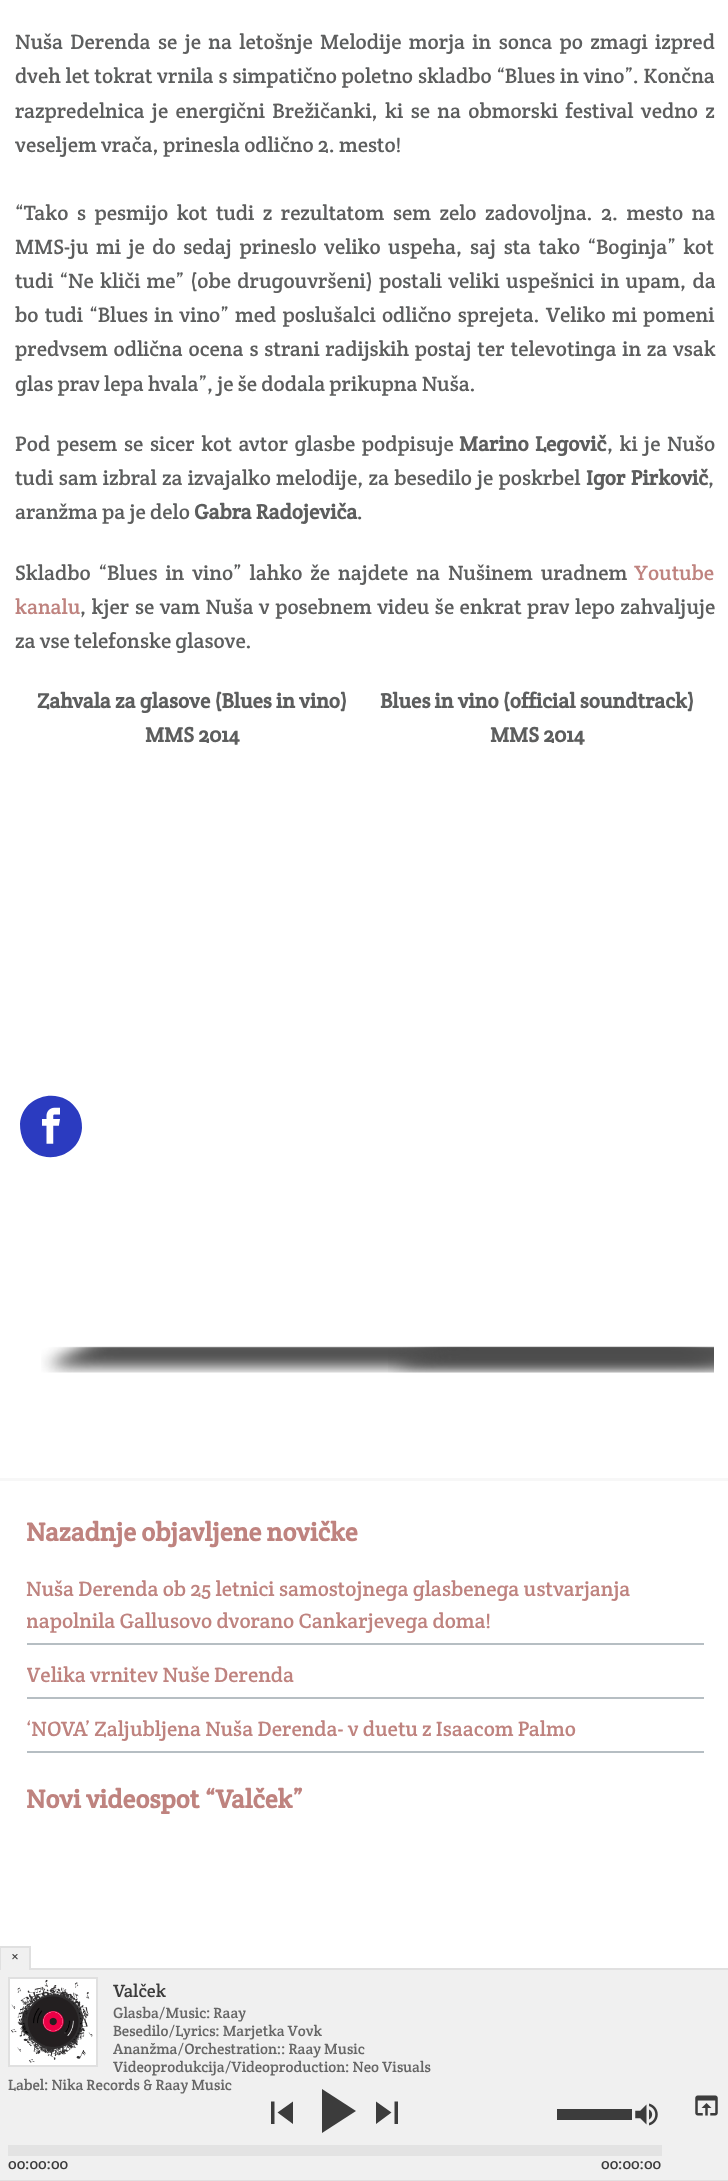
<svg xmlns="http://www.w3.org/2000/svg" width="728" height="2181">
<defs>
<clipPath id="clip1"><rect x="15" width="699" height="1373"/></clipPath>
<clipPath id="clip2"><rect x="27" y="1517" width="677" height="583"/></clipPath>
</defs>
<rect width="100%" height="100%" fill="#fff"/>
<text x="15" y="49" word-spacing="3.1" style="font-family:Crete Round;font-size:21px;fill:#5d5e5e">Nuša Derenda se je na letošnje Melodije morja in sonca po zmagi izpred</text>
<text x="15" y="83" word-spacing="0.5" style="font-family:Crete Round;font-size:21px;fill:#5d5e5e">dveh let tokrat vrnila s simpatično poletno skladbo “Blues in vino”. Končna</text>
<text x="15" y="118" word-spacing="3.1" style="font-family:Crete Round;font-size:21px;fill:#5d5e5e">razpredelnica je energični Brežičanki, ki se na obmorski festival vedno z</text>
<g clip-path="url(#clip1)">
<text x="15" y="152" style="font-family:Crete Round;font-size:21px;fill:#5d5e5e">veseljem vrača, prinesla odlično 2. mesto!</text>
</g>
<text x="15" y="220" word-spacing="4.25" style="font-family:Crete Round;font-size:21px;fill:#5d5e5e">“Tako s pesmijo kot tudi z rezultatom sem zelo zadovoljna. 2. mesto na</text>
<text x="15" y="254" word-spacing="3.25" style="font-family:Crete Round;font-size:21px;fill:#5d5e5e">MMS-ju mi je do sedaj prineslo veliko uspeha, saj sta tako “Boginja” kot</text>
<text x="15" y="288" word-spacing="2" style="font-family:Crete Round;font-size:21px;fill:#5d5e5e">tudi “Ne kliči me” (obe drugouvršeni) postali veliki uspešnici in upam, da</text>
<text x="15" y="322" word-spacing="2" style="font-family:Crete Round;font-size:21px;fill:#5d5e5e">bo tudi “Blues in vino” med poslušalci odlično sprejeta. Veliko mi pomeni</text>
<text x="15" y="356" word-spacing="1.5" style="font-family:Crete Round;font-size:21px;fill:#5d5e5e">predvsem odlična ocena s strani radijskih postaj ter televotinga in za vsak</text>
<text x="15" y="391" style="font-family:Crete Round;font-size:21px;fill:#5d5e5e">glas prav lepa hvala”, je še dodala prikupna Nuša.</text>
<text x="15" y="451" word-spacing="2.25" style="font-family:Crete Round;font-size:21px;fill:#5d5e5e">Pod pesem se sicer kot avtor glasbe podpisuje</text>
<text x="459" y="451" word-spacing="2.25" style="font-family:Crete Round;font-size:21px;font-weight:bold;fill:#5d5e5e">Marino Legovič</text>
<text x="607" y="451" word-spacing="2.25" style="font-family:Crete Round;font-size:21px;fill:#5d5e5e">, ki je Nušo</text>
<text x="15" y="485" word-spacing="1" style="font-family:Crete Round;font-size:21px;fill:#5d5e5e">tudi sam izbral za izvajalko melodije, za besedilo je poskrbel</text>
<text x="586" y="485" word-spacing="1" style="font-family:Crete Round;font-size:21px;font-weight:bold;fill:#5d5e5e">Igor Pirkovič</text>
<text x="708" y="485" style="font-family:Crete Round;font-size:21px;fill:#5d5e5e">,</text>
<text x="15" y="519" style="font-family:Crete Round;font-size:21px;fill:#5d5e5e">aranžma pa je delo</text>
<text x="194" y="519" style="font-family:Crete Round;font-size:21px;font-weight:bold;fill:#5d5e5e">Gabra Radojeviča</text>
<text x="357" y="519" style="font-family:Crete Round;font-size:21px;fill:#5d5e5e">.</text>
<text x="15" y="580" word-spacing="3.75" style="font-family:Crete Round;font-size:21px;fill:#5d5e5e">Skladbo “Blues in vino” lahko že najdete na Nušinem uradnem</text>
<text x="634" y="580" style="font-family:Crete Round;font-size:21px;fill:#bf837f">Youtube</text>
<text x="15" y="614" style="font-family:Crete Round;font-size:21px;fill:#bf837f">kanalu</text>
<text x="80" y="614" word-spacing="1.25" style="font-family:Crete Round;font-size:21px;fill:#5d5e5e">, kjer se vam Nuša v posebnem videu še enkrat prav lepo zahvaljuje</text>
<text x="15" y="648" style="font-family:Crete Round;font-size:21px;fill:#5d5e5e">za vse telefonske glasove.</text>
<text x="37" y="708" style="font-family:Crete Round;font-size:21px;font-weight:bold;fill:#5d5e5e">Zahvala za glasove (Blues in vino)</text>
<text x="145" y="742" style="font-family:Crete Round;font-size:21px;font-weight:bold;fill:#5d5e5e">MMS 2014</text>
<image x="41" y="1346" width="673" height="27" href="media/1.png"/>
<text x="380" y="708" style="font-family:Crete Round;font-size:21px;font-weight:bold;fill:#5d5e5e">Blues in vino (official soundtrack)</text>
<text x="490" y="742" style="font-family:Crete Round;font-size:21px;font-weight:bold;fill:#5d5e5e">MMS 2014</text>
<image x="388" y="1346" width="326" height="27" href="media/2.png"/>
<rect y="1478" width="728" height="3" fill="#f7f7f7"/>
<text x="26" y="1541" style="font-family:Crete Round;font-size:26.25px;font-weight:bold;fill:#bf837f">Nazadnje objavljene novičke</text>
<rect x="27" y="1643" width="677" height="2" fill="#b6bec3"/>
<text x="26" y="1596" style="font-family:Crete Round;font-size:21px;fill:#bf837f">Nuša Derenda ob 25 letnici samostojnega glasbenega ustvarjanja</text>
<g clip-path="url(#clip2)">
<text x="26" y="1628" style="font-family:Crete Round;font-size:21px;fill:#bf837f">napolnila Gallusovo dvorano Cankarjevega doma!</text>
</g>
<rect x="27" y="1697" width="677" height="2" fill="#b6bec3"/>
<g clip-path="url(#clip2)">
<text x="26" y="1682" style="font-family:Crete Round;font-size:21px;fill:#bf837f">Velika vrnitev Nuše Derenda</text>
</g>
<rect x="27" y="1751" width="677" height="2" fill="#b6bec3"/>
<text x="26" y="1736" style="font-family:Crete Round;font-size:21px;fill:#bf837f">‘NOVA’ Zaljubljena Nuša Derenda- v duetu z Isaacom Palmo</text>
<text x="26" y="1808" style="font-family:Crete Round;font-size:26.25px;font-weight:bold;fill:#bf837f">Novi videospot “Valček”</text>
<path d="M78 1111c3 5 4 11 4 17c-2 31-43 40-58 14c-3-6-4-12-4-18c2-30 43-39 58-13z" fill="#2b3bc0"/>
<image x="42" y="1107" width="18" height="37" href="media/3.png"/>
<rect y="1970" width="728" height="210" fill="#f0f0f0"/>
<rect x="31" y="1968" width="697" height="2" fill="#e0e0e0"/>
<rect y="2180" width="728" height="1" fill="#e0e0e0"/>
<rect x="1" y="1948" width="28" height="22" fill="#f0f0f0"/>
<rect y="1946" width="30" height="2" fill="#e0e0e0"/>
<rect x="29" y="1946" width="2" height="24" fill="#e0e0e0"/>
<rect y="1946" width="1" height="24" fill="#e0e0e0"/>
<text x="11" y="1961" style="font-family:Crete Round;font-size:15px;fill:#3c3c3c">×</text>
<rect x="10" y="1979" width="86" height="86" fill="#fff"/>
<image x="22" y="1993" width="61" height="58" href="media/4.png"/>
<rect x="9" y="1978" width="88" height="88" fill="none" stroke="#e0e0e0" stroke-width="2"/>
<image x="11" y="1979" width="82" height="84" href="media/5.png"/>
<text x="113" y="1997" style="font-family:Crete Round;font-size:18px;fill:#3c3c3c">Valček</text>
<text x="113" y="2018" style="font-family:Crete Round;font-size:15px;fill:#666">Glasba/Music: Raay</text>
<text x="113" y="2036" style="font-family:Crete Round;font-size:15px;fill:#666">Besedilo/Lyrics: Marjetka Vovk</text>
<text x="113" y="2054" style="font-family:Crete Round;font-size:15px;fill:#666">Ananžma/Orchestration:: Raay Music</text>
<text x="113" y="2072" style="font-family:Crete Round;font-size:15px;fill:#666">Videoprodukcija/Videoproduction: Neo Visuals</text>
<text x="8" y="2090" style="font-family:Crete Round;font-size:15px;fill:#666">Label: Nika Records &amp; Raay Music</text>
<image x="695" y="2095" width="23" height="21" href="media/6.png"/>
<path d="M277.5 2112.5l15.5-11v22.5zm-6.5-11h3.5v22.5h-3.5z" fill="#3c3c3c"/>
<path d="M322 2089l34 22l-34 22z" fill="#3c3c3c"/>
<path d="M394.5 2101.5h3.5v22.5h-3.5zm-18.5 22.5v-22.5l15.5 11z" fill="#3c3c3c"/>
<rect x="557" y="2109" width="75" height="11" fill="#3c3c3c"/>
<image x="635" y="2103" width="23" height="23" href="media/7.png"/>
<rect x="9" y="2146" width="652" height="9" fill="none" stroke="#e3e3e3" stroke-width="2"/>
<rect x="9" y="2147" width="651" height="7" fill="#e3e3e3"/>
<text x="8" y="2169" style="font-family:Crete Round;font-size:15px;fill:#3c3c3c">00:00:00</text>
<text x="601" y="2169" style="font-family:Crete Round;font-size:15px;fill:#3c3c3c">00:00:00</text>
</svg>
